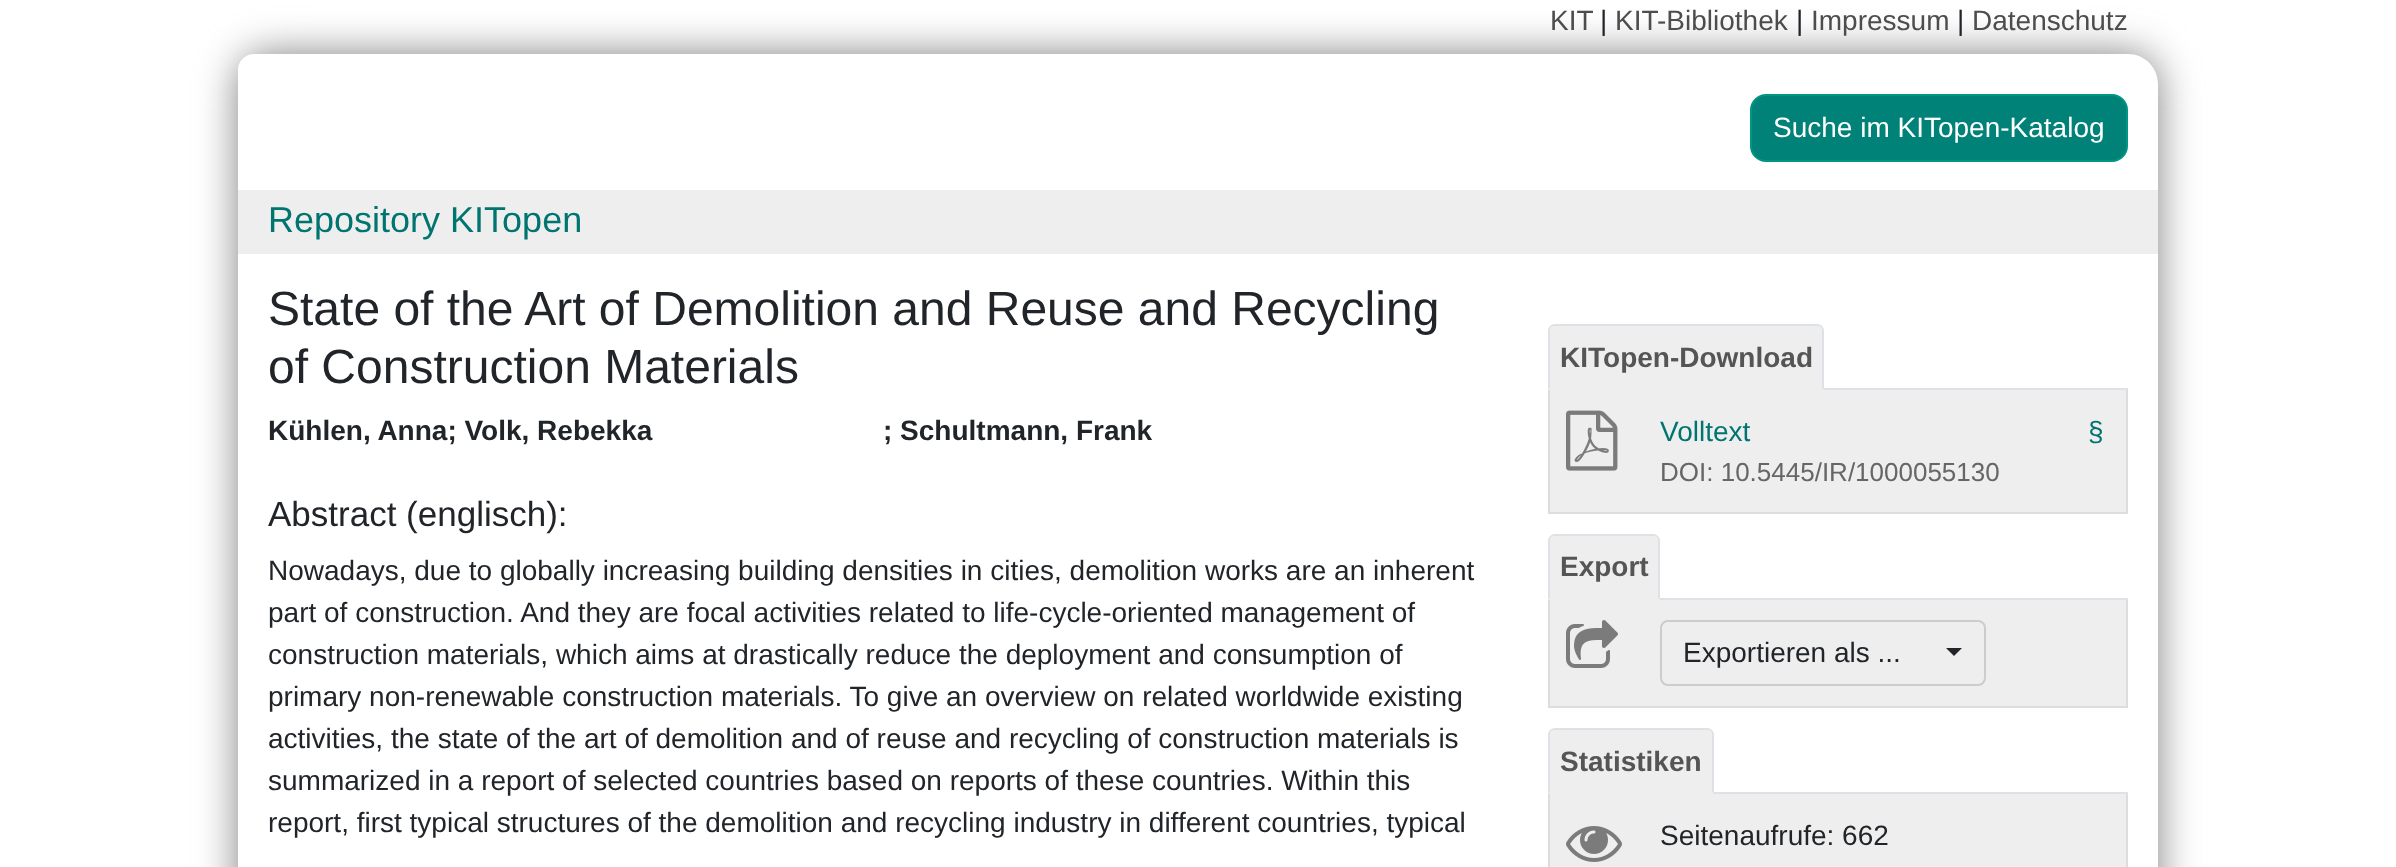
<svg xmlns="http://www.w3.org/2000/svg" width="2396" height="867">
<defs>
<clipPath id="clip1"><path d="M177 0h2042v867h-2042zm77 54h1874c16.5 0 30 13.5 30 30v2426c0 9-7 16-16 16h-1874c-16.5 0-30-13.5-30-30v-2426c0-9 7-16 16-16z" clip-rule="evenodd"/></clipPath>
</defs>
<rect width="100%" height="100%" fill="#fff"/>
<g clip-path="url(#clip1)">
<rect x="238" y="54" width="1920" height="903" rx="30" fill="#808080" filter="blur(20px)"/>
</g>
<text x="1550" y="30" style="font-family:Liberation Sans;font-size:28px;fill:#4d4d4d">KIT</text>
<text x="1600" y="30" style="font-family:Liberation Sans;font-size:28px;fill:#212529">|</text>
<text x="1615" y="30" style="font-family:Liberation Sans;font-size:28px;fill:#4d4d4d">KIT-Bibliothek</text>
<text x="1796" y="30" style="font-family:Liberation Sans;font-size:28px;fill:#212529">|</text>
<text x="1811" y="30" style="font-family:Liberation Sans;font-size:28px;fill:#4d4d4d">Impressum</text>
<text x="1957" y="30" style="font-family:Liberation Sans;font-size:28px;fill:#212529">|</text>
<text x="1972" y="30" style="font-family:Liberation Sans;font-size:28px;fill:#4d4d4d">Datenschutz</text>
<rect x="1751" y="95" width="376" height="66" rx="15" fill="#008278" stroke="#009682" stroke-width="2"/>
<text x="1773" y="137" style="font-family:Liberation Sans;font-size:28px;fill:#fff">Suche im KITopen-Katalog</text>
<rect x="238" y="190" width="1920" height="64" fill="#eee"/>
<text x="268" y="232" style="font-family:Liberation Sans;font-size:36px;fill:#007570">Repository KITopen</text>
<text x="268" y="325" style="font-family:Liberation Sans;font-size:48px;fill:#212529">State of the Art of Demolition and Reuse and Recycling</text>
<text x="268" y="383" style="font-family:Liberation Sans;font-size:48px;fill:#212529">of Construction Materials</text>
<text x="268" y="440" style="font-family:Liberation Sans;font-size:28px;font-weight:bold;fill:#212529">Kühlen, Anna; Volk, Rebekka</text>
<text x="883" y="440" style="font-family:Liberation Sans;font-size:28px;font-weight:bold;fill:#212529">; Schultmann, Frank</text>
<text x="268" y="526" style="font-family:Liberation Sans;font-size:35px;fill:#212529">Abstract (englisch):</text>
<text x="268" y="580" style="font-family:Liberation Sans;font-size:28px;fill:#212529">Nowadays, due to globally increasing building densities in cities, demolition works are an inherent</text>
<text x="268" y="622" style="font-family:Liberation Sans;font-size:28px;fill:#212529">part of construction. And they are focal activities related to life-cycle-oriented management of</text>
<text x="268" y="664" style="font-family:Liberation Sans;font-size:28px;fill:#212529">construction materials, which aims at drastically reduce the deployment and consumption of</text>
<text x="268" y="706" style="font-family:Liberation Sans;font-size:28px;fill:#212529">primary non-renewable construction materials. To give an overview on related worldwide existing</text>
<text x="268" y="748" style="font-family:Liberation Sans;font-size:28px;fill:#212529">activities, the state of the art of demolition and of reuse and recycling of construction materials is</text>
<text x="268" y="790" style="font-family:Liberation Sans;font-size:28px;fill:#212529">summarized in a report of selected countries based on reports of these countries. Within this</text>
<text x="268" y="832" style="font-family:Liberation Sans;font-size:28px;fill:#212529">report, first typical structures of the demolition and recycling industry in different countries, typical</text>
<rect x="1824" y="388" width="304" height="2" fill="#dee2e6"/>
<path d="M1556 324h260c4.5 0 8 3.5 8 8v58h-276v-58c0-4.5 3.5-8 8-8z" fill="#eee"/>
<path d="M1555 324c-2 0-4 1-5 2l1 1c1-1 3-1 4-1h262c1 0 3 0 4 1l1-1c-1-1-3-2-5-2z" fill="#dee2e6"/>
<path d="M1824 390v-59c0-2-1-4-2-5l-1 1c1 1 1 3 1 4v57z" fill="#dee2e6"/>
<path d="M1824 390l-2-2h-272l-2 2z" fill="#eee"/>
<path d="M1548 390l2-2v-57c0-1 0-3 1-4l-1-1c-1 1-2 3-2 5z" fill="#dee2e6"/>
<text x="1560" y="367" style="font-family:Liberation Sans;font-size:28px;font-weight:bold;fill:#555">KITopen-Download</text>
<rect x="1550" y="390" width="576" height="122" fill="#eee"/>
<rect x="2126" y="390" width="2" height="124" fill="#ddd"/>
<rect x="1548" y="512" width="580" height="2" fill="#ddd"/>
<rect x="1548" y="390" width="2" height="124" fill="#ddd"/>
<image x="1566" y="410" width="52" height="61" href="media/1.png"/>
<text x="1660" y="441" style="font-family:Liberation Sans;font-size:28px;fill:#007570">Volltext</text>
<text x="2088" y="441" style="font-family:Liberation Sans;font-size:28px;fill:#007570">§</text>
<text x="1660" y="481" style="font-family:Liberation Sans;font-size:26px;fill:#666">DOI: 10.5445/IR/1000055130</text>
<rect x="1660" y="598" width="468" height="2" fill="#dee2e6"/>
<path d="M1556 534h96c4.5 0 8 3.5 8 8v58h-112v-58c0-4.5 3.5-8 8-8z" fill="#eee"/>
<path d="M1555 534c-2 0-4 1-5 2l1 1l3-1h100l3 1l1-1c-1-1-3-2-5-2z" fill="#dee2e6"/>
<path d="M1660 600v-59c0-2-1-4-2-5l-1 1c1 1 1 3 1 4v57z" fill="#dee2e6"/>
<path d="M1660 600l-2-2h-108l-2 2z" fill="#eee"/>
<path d="M1548 600l2-2v-57c0-1 0-3 1-4l-1-1c-1 1-2 3-2 5z" fill="#dee2e6"/>
<text x="1560" y="576" style="font-family:Liberation Sans;font-size:28px;font-weight:bold;fill:#555">Export</text>
<rect x="1550" y="600" width="576" height="106" fill="#eee"/>
<rect x="2126" y="600" width="2" height="108" fill="#ddd"/>
<rect x="1548" y="706" width="580" height="2" fill="#ddd"/>
<rect x="1548" y="600" width="2" height="108" fill="#ddd"/>
<image x="1566" y="620" width="52" height="48" href="media/2.png"/>
<rect x="1661" y="621" width="324" height="64" rx="7" fill="none" stroke="#ccc" stroke-width="2"/>
<text x="1683" y="662" style="font-family:Liberation Sans;font-size:28px;fill:#212529">Exportieren als ...</text>
<path d="M1946 648h16l-8 8z" fill="#212529"/>
<rect x="1714" y="792" width="414" height="2" fill="#dee2e6"/>
<path d="M1556 728h150c4.5 0 8 3.5 8 8v58h-166v-58c0-4.5 3.5-8 8-8z" fill="#eee"/>
<path d="M1555 728c-2 0-4 1-5 2l1 1c1-1 3-1 4-1h152c1 0 3 0 4 1l1-1c-1-1-3-2-5-2z" fill="#dee2e6"/>
<path d="M1714 794v-59c0-2-1-4-2-5l-1 1c1 1 1 3 1 4v57z" fill="#dee2e6"/>
<path d="M1714 794l-2-2h-162l-2 2z" fill="#eee"/>
<path d="M1548 794l2-2v-57c0-1 0-3 1-4l-1-1c-1 1-2 3-2 5z" fill="#dee2e6"/>
<text x="1560" y="771" style="font-family:Liberation Sans;font-size:28px;font-weight:bold;fill:#555">Statistiken</text>
<rect x="1550" y="794" width="576" height="73" fill="#eee"/>
<rect x="2126" y="794" width="2" height="73" fill="#ddd"/>
<rect x="1548" y="794" width="2" height="73" fill="#ddd"/>
<image x="1566" y="826" width="56" height="36" href="media/3.png"/>
<text x="1660" y="845" style="font-family:Liberation Sans;font-size:28px;fill:#212529">Seitenaufrufe: 662</text>
</svg>
